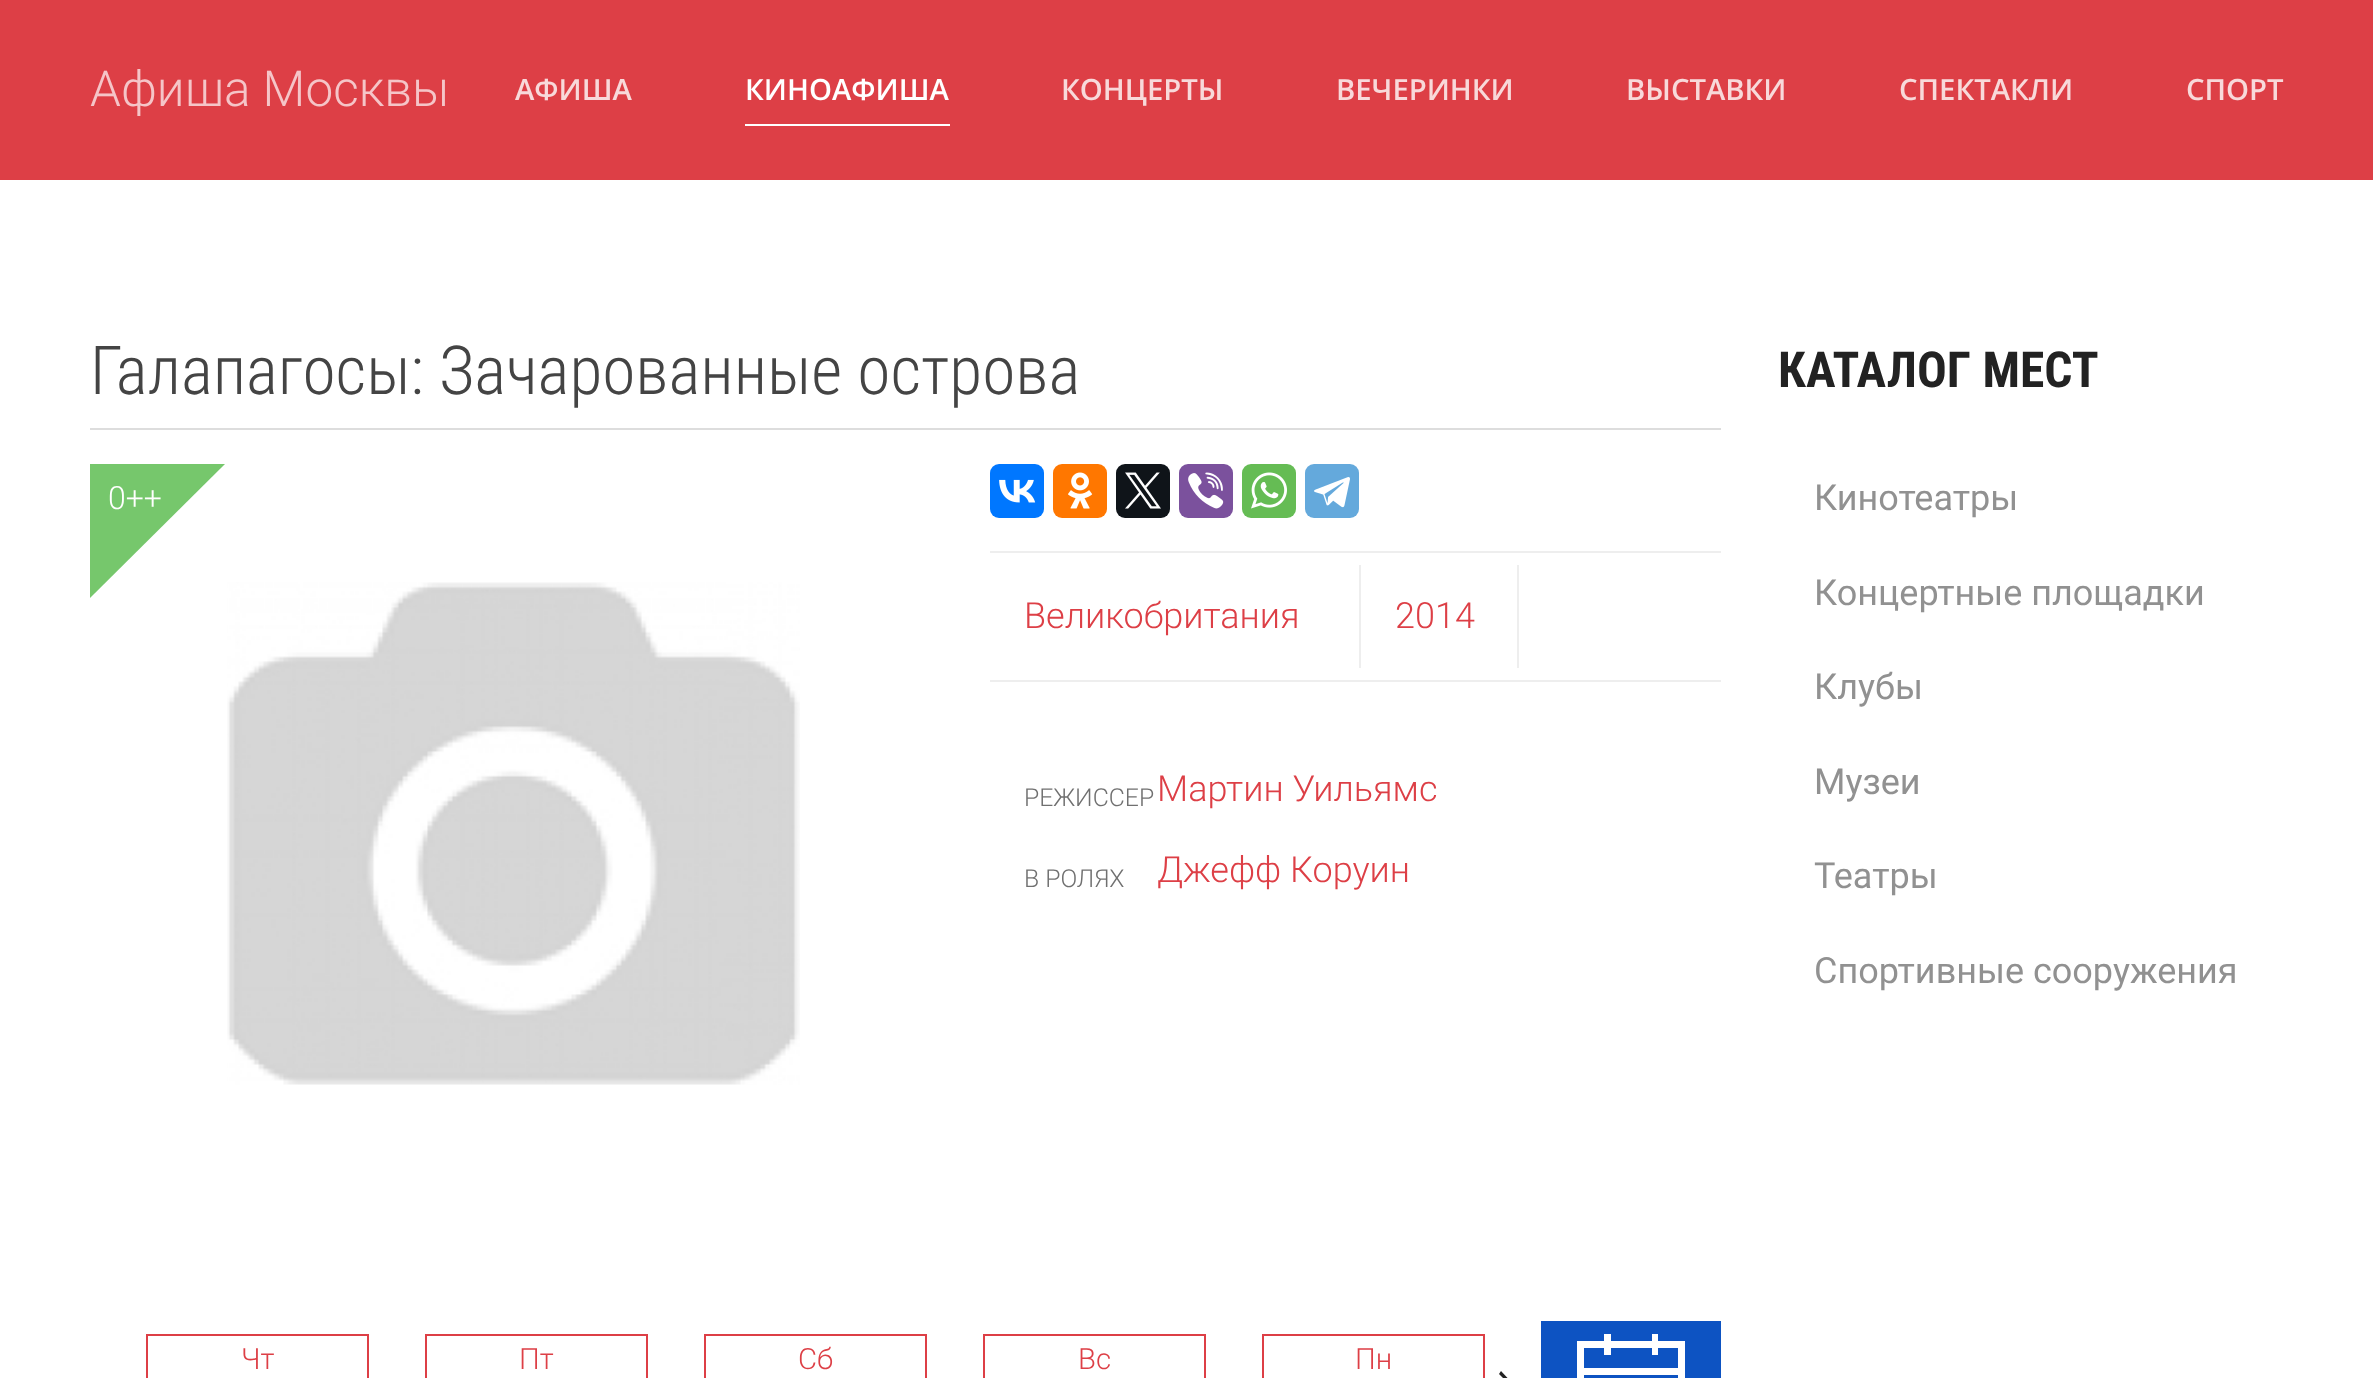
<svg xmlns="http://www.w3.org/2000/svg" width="2373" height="1378">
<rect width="100%" height="100%" fill="#fff"/>
<rect width="2373" height="180" fill="#dd3f46"/>
<text x="90" y="106" style="font-family:Roboto;font-size:49.5px;font-weight:300;fill:#f5c5c8">Афиша Москвы</text>
<text x="515" y="100" style="font-family:Open Sans;font-size:29.25px;font-weight:600;fill:#f8d9da">АФИША</text>
<text x="745" y="100" style="font-family:Open Sans;font-size:29.25px;font-weight:600;fill:#fff">КИНОАФИША</text>
<rect x="745" y="124" width="205" height="2" fill="#fff"/>
<text x="1061" y="100" style="font-family:Open Sans;font-size:29.25px;font-weight:600;fill:#f8d9da">КОНЦЕРТЫ</text>
<text x="1336" y="100" style="font-family:Open Sans;font-size:29.25px;font-weight:600;fill:#f8d9da">ВЕЧЕРИНКИ</text>
<text x="1626" y="100" style="font-family:Open Sans;font-size:29.25px;font-weight:600;fill:#f8d9da">ВЫСТАВКИ</text>
<text x="1899" y="100" style="font-family:Open Sans;font-size:29.25px;font-weight:600;fill:#f8d9da">СПЕКТАКЛИ</text>
<text x="2186" y="100" style="font-family:Open Sans;font-size:29.25px;font-weight:600;fill:#f8d9da">СПОРТ</text>
<rect x="90" y="428" width="1631" height="2" fill="#ddd"/>
<text x="90" y="394" style="font-family:Roboto Condensed;font-size:67.5px;font-weight:300;fill:#444">Галапагосы: Зачарованные острова</text>
<path d="M90 464h135l-135 134z" fill="#76c76c"/>
<text x="108" y="509" style="font-family:Roboto;font-size:32px;font-weight:300;fill:#fff">0++</text>
<image x="227" y="582" width="573" height="503" href="media/1.png"/>
<rect x="990" y="464" width="54" height="54" rx="9" fill="#07f"/>
<image x="999" y="479" width="37" height="24" href="media/2.png"/>
<rect x="1053" y="464" width="54" height="54" rx="9" fill="#f70"/>
<image x="1068" y="472" width="25" height="37" href="media/3.png"/>
<rect x="1116" y="464" width="54" height="54" rx="9" fill="#0f1419"/>
<image x="1125" y="472" width="36" height="37" href="media/4.png"/>
<rect x="1179" y="464" width="54" height="54" rx="9" fill="#7b519d"/>
<image x="1188" y="472" width="36" height="37" href="media/5.png"/>
<rect x="1242" y="464" width="54" height="54" rx="9" fill="#65bc54"/>
<image x="1251" y="472" width="36" height="37" href="media/6.png"/>
<rect x="1305" y="464" width="54" height="54" rx="9" fill="#64a9dc"/>
<image x="1314" y="477" width="36" height="31" href="media/7.png"/>
<rect x="990" y="551" width="731" height="2" fill="#eee"/>
<rect x="990" y="680" width="731" height="2" fill="#eee"/>
<text x="1024" y="628" style="font-family:Roboto;font-size:36px;font-weight:300;fill:#dd3f46">Великобритания</text>
<rect x="1359" y="565" width="2" height="103" fill="#eee"/>
<text x="1395" y="628" style="font-family:Roboto;font-size:36px;font-weight:300;fill:#dd3f46">2014</text>
<rect x="1517" y="565" width="2" height="103" fill="#eee"/>
<text x="1024" y="806" style="font-family:Roboto;font-size:24.75px;font-weight:300;fill:#707070">РЕЖИССЕР</text>
<text x="1157" y="801" style="font-family:Roboto;font-size:36px;font-weight:300;fill:#dd3f46">Мартин Уильямс</text>
<text x="1024" y="887" style="font-family:Roboto;font-size:24.75px;font-weight:300;fill:#707070">В РОЛЯХ</text>
<text x="1157" y="882" style="font-family:Roboto;font-size:36px;font-weight:300;fill:#dd3f46">Джефф Коруин</text>
<rect x="147" y="1335" width="221" height="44" fill="none" stroke="#dd3f46" stroke-width="2"/>
<text x="241" y="1369" style="font-family:Roboto;font-size:29.25px;font-weight:300;fill:#dd3f46">Чт</text>
<rect x="426" y="1335" width="221" height="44" fill="none" stroke="#dd3f46" stroke-width="2"/>
<text x="519" y="1369" style="font-family:Roboto;font-size:29.25px;font-weight:300;fill:#dd3f46">Пт</text>
<rect x="705" y="1335" width="221" height="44" fill="none" stroke="#dd3f46" stroke-width="2"/>
<text x="798" y="1369" style="font-family:Roboto;font-size:29.25px;font-weight:300;fill:#dd3f46">Сб</text>
<rect x="984" y="1335" width="221" height="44" fill="none" stroke="#dd3f46" stroke-width="2"/>
<text x="1078" y="1369" style="font-family:Roboto;font-size:29.25px;font-weight:300;fill:#dd3f46">Вс</text>
<rect x="1263" y="1335" width="221" height="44" fill="none" stroke="#dd3f46" stroke-width="2"/>
<text x="1355" y="1369" style="font-family:Roboto;font-size:29.25px;font-weight:300;fill:#dd3f46">Пн</text>
<path d="M1476 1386h35l-12-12l2-3l15 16l-15 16l-2-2l12-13h-35z" fill="#222"/>
<rect x="1541" y="1321" width="180" height="57" fill="#0d53c2"/>
<path d="M1577 1341v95h108v-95zm101 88h-94v-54h94zm0-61h-94v-20h94z" fill="#fff"/>
<rect x="1604" y="1334" width="7" height="21" fill="#fff"/>
<rect x="1652" y="1334" width="6" height="21" fill="#fff"/>
<text x="1778" y="387" style="font-family:Roboto Condensed;font-size:49.5px;font-weight:bold;fill:#222">КАТАЛОГ МЕСТ</text>
<text x="1814" y="510" style="font-family:Roboto;font-size:36px;fill:#919191">Кинотеатры</text>
<text x="1814" y="605" style="font-family:Roboto;font-size:36px;fill:#919191">Концертные площадки</text>
<text x="1814" y="699" style="font-family:Roboto;font-size:36px;fill:#919191">Клубы</text>
<text x="1814" y="794" style="font-family:Roboto;font-size:36px;fill:#919191">Музеи</text>
<text x="1814" y="888" style="font-family:Roboto;font-size:36px;fill:#919191">Театры</text>
<text x="1814" y="983" style="font-family:Roboto;font-size:36px;fill:#919191">Спортивные сооружения</text>
</svg>
